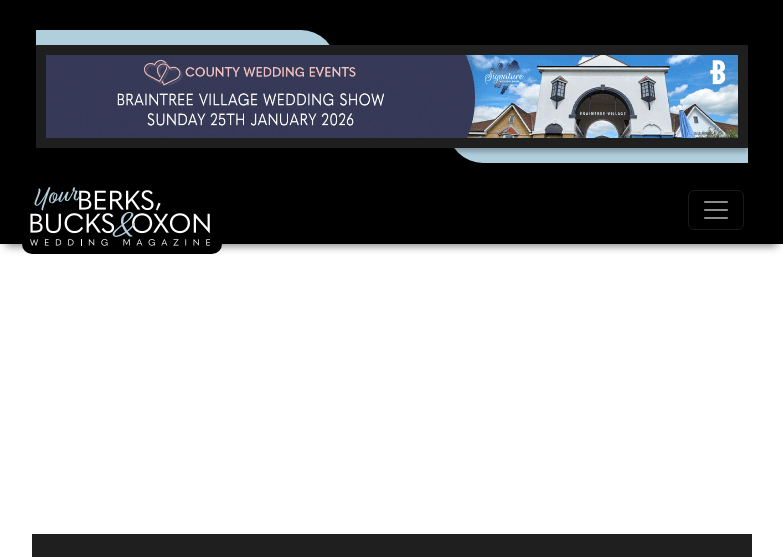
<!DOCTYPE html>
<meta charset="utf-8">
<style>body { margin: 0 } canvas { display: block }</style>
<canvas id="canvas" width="783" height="557"></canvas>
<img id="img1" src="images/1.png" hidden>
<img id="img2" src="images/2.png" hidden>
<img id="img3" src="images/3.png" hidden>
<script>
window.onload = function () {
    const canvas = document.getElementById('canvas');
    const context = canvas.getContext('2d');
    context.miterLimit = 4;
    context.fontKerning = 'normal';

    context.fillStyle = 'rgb(255, 255, 255)';
    context.fillRect(0, 0, 783, 557);
    context.fillStyle = 'rgb(0, 0, 0)';
    context.fillRect(0, 0, 783, 177);
    context.fillStyle = 'rgb(176, 207, 221)';
    context.beginPath();
    context.roundRect(36, 30, 300, 100, [0, 35, 0, 35]);
    context.fill();
    context.beginPath();
    context.roundRect(448, 63, 300, 100, [0, 35, 0, 35]);
    context.fill();
    context.fillStyle = 'rgba(0, 0, 0, 0.25)';
    context.filter = 'blur(2px)';
    context.beginPath();
    context.rect(36, 49, 712, 103);
    context.fill();
    context.filter = 'none';
    context.fillStyle = 'rgb(31, 31, 31)';
    context.fillRect(36, 45, 712, 103);
    context.drawImage(document.getElementById('img1'), 46, 55, 692, 83);
    context.fillStyle = 'rgba(0, 0, 0, 0.5)';
    context.filter = 'blur(4px)';
    context.beginPath();
    context.rect(6, 191, 771, 55);
    context.fill();
    context.filter = 'none';
    context.fillStyle = 'rgb(0, 0, 0)';
    context.fillRect(0, 177, 783, 67);
    context.beginPath();
    context.roundRect(22, 187, 200, 67, [0, 0, 10, 10]);
    context.fill();
    context.drawImage(document.getElementById('img2'), 30, 187, 180, 59);
    context.beginPath();
    context.roundRect(688.5, 190.5, 55, 39, 5.5);
    context.strokeStyle = 'rgb(26, 26, 26)';
    context.stroke();
    context.drawImage(document.getElementById('img3'), 704, 201, 24, 18);
    context.fillStyle = 'rgb(31, 31, 31)';
    context.fillRect(32, 534, 720, 23);
};
</script>
